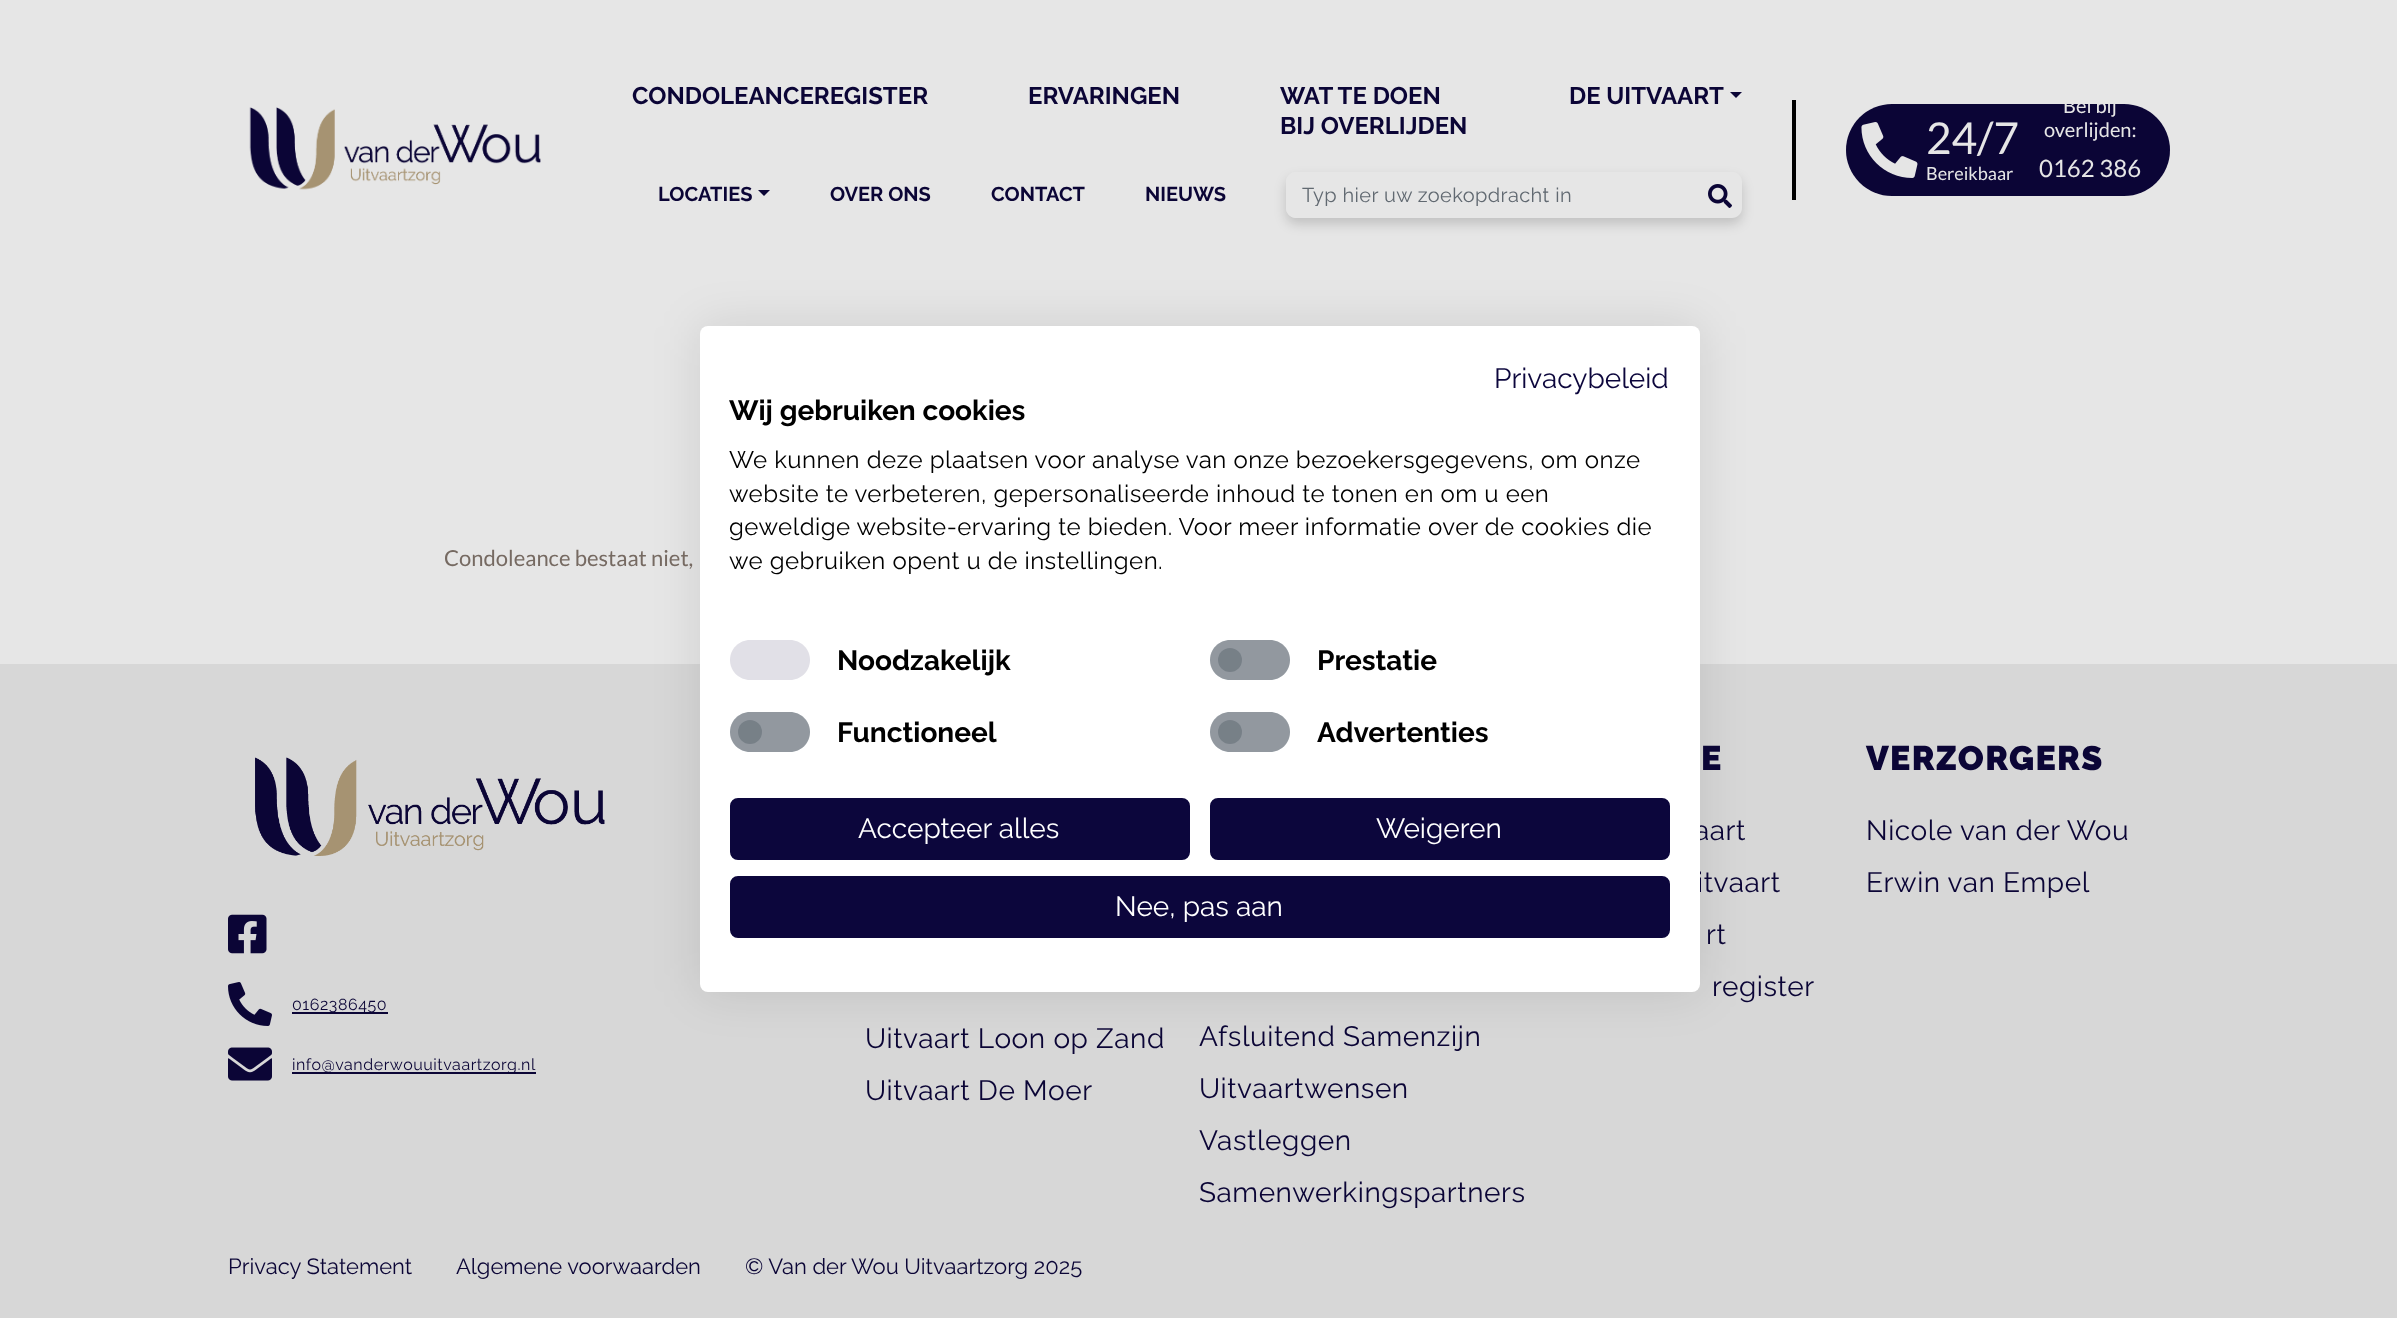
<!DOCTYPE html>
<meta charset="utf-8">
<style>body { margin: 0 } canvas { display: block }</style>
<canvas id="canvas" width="2397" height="1318"></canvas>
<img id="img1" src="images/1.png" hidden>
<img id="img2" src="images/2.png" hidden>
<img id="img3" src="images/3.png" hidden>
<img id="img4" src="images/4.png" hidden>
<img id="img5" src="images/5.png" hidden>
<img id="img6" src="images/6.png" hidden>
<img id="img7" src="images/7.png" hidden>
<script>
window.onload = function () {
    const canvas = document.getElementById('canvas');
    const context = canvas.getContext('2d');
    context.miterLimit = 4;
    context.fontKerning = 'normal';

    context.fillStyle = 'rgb(230, 230, 230)';
    context.fillRect(0, 0, 2397, 1318);
    context.drawImage(document.getElementById('img1'), 249, 107, 292, 83);
    context.fillStyle = 'rgb(11, 5, 54)';
    context.beginPath();
    context.moveTo(1730, 92);
    context.lineTo(1742, 92);
    context.lineTo(1736, 98);
    context.closePath();
    context.fill();
    context.beginPath();
    context.moveTo(758, 190);
    context.lineTo(770, 190);
    context.lineTo(764, 196);
    context.closePath();
    context.fill();
    context.save();
    context.beginPath();
    context.moveTo(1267, 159);
    context.lineTo(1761, 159);
    context.lineTo(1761, 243);
    context.lineTo(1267, 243);
    context.closePath();
    context.moveTo(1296, 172);
    context.lineTo(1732, 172);
    context.bezierCurveTo(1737.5, 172, 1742, 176.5, 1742, 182);
    context.lineTo(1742, 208);
    context.bezierCurveTo(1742, 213.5, 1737.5, 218, 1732, 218);
    context.lineTo(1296, 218);
    context.bezierCurveTo(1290.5, 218, 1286, 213.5, 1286, 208);
    context.lineTo(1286, 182);
    context.bezierCurveTo(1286, 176.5, 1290.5, 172, 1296, 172);
    context.closePath();
    context.clip('evenodd');
    context.fillStyle = 'rgba(0, 0, 0, 0.16)';
    context.filter = 'blur(6px)';
    context.beginPath();
    context.roundRect(1286, 178, 456, 46, 10);
    context.fill();
    context.filter = 'none';
    context.restore();
    context.fillStyle = 'rgb(230, 230, 230)';
    context.beginPath();
    context.roundRect(1286, 172, 412, 46, [10, 0, 0, 10]);
    context.fill();
    context.drawImage(document.getElementById('img2'), 1708, 184, 24, 24);
    context.fillStyle = 'rgb(0, 0, 0)';
    context.fillRect(1792, 100, 4, 100);
    context.fillStyle = 'rgb(11, 5, 54)';
    context.beginPath();
    context.roundRect(1846, 104, 324, 92, 46);
    context.fill();
    context.drawImage(document.getElementById('img3'), 1861, 122, 57, 56);
    context.fillStyle = 'rgb(215, 215, 215)';
    context.fillRect(0, 664, 2397, 654);
    context.fillStyle = 'rgba(0, 0, 0, 0.1)';
    context.filter = 'blur(24px)';
    context.beginPath();
    context.roundRect(700, 326, 1000, 666, 8);
    context.fill();
    context.filter = 'none';
    context.drawImage(document.getElementById('img4'), 255, 757, 350, 99);
    context.drawImage(document.getElementById('img5'), 228, 914, 39, 40);
    context.drawImage(document.getElementById('img6'), 228, 982, 44, 44);
    context.fillStyle = 'rgb(11, 5, 54)';
    context.fillRect(292, 1012, 96, 2);
    context.drawImage(document.getElementById('img7'), 228, 1047, 44, 34);
    context.fillRect(292, 1072, 244, 2);
    context.font = 'bold 24px Raleway';
    context.fillText('CONDOLEANCEREGISTER', 632, 104);
    context.fillText('ERVARINGEN', 1028, 104);
    context.fillText('WAT TE DOEN', 1280, 104);
    context.fillText('BIJ OVERLIJDEN', 1280, 134);
    context.fillText('DE UITVAART', 1569, 104);
    context.font = 'bold 20px Raleway';
    context.fillText('LOCATIES', 658, 201);
    context.fillText('OVER ONS', 830, 201);
    context.fillText('CONTACT', 991, 201);
    context.fillText('NIEUWS', 1145, 201);
    context.save();
    context.beginPath();
    context.rect(1302, 184, 380, 22);
    context.clip();
    context.letterSpacing = '0.4px';
    context.font = '20px Raleway';
    context.fillStyle = 'rgb(97, 105, 113)';
    context.fillText('Typ hier uw zoekopdracht in', 1302, 202);
    context.restore();
    context.font = '44px Lato';
    context.fillStyle = 'rgb(230, 230, 230)';
    context.fillText('24/7', 1926, 154);
    context.font = '18px Lato';
    context.fillText('Bereikbaar', 1926, 180);
    context.font = '20px Lato';
    context.fillText('Bel bij', 2063, 113);
    context.fillText('overlijden:', 2044, 137);
    context.font = '24px Lato';
    context.fillText('0162 386', 2039, 177);
    context.font = '22px Lato';
    context.fillStyle = 'rgb(118, 106, 98)';
    context.fillText('Condoleance bestaat niet,', 444, 566);
    context.letterSpacing = '0.55px';
    context.font = '16px Raleway';
    context.fillStyle = 'rgb(11, 5, 54)';
    context.fillText('0162386450', 292, 1010);
    context.fillText('info@vanderwouuitvaartzorg.nl', 292, 1070);
    context.letterSpacing = '1.25px';
    context.font = '900 34px Raleway';
    context.fillText('E', 1701, 770);
    context.letterSpacing = '0.55px';
    context.font = '28px Raleway';
    context.fillText('aart', 1694, 840);
    context.fillText('itvaart', 1697, 892);
    context.fillStyle = 'rgb(255, 255, 255)';
    context.beginPath();
    context.roundRect(700, 326, 1000, 666, 8);
    context.fill();
    context.fillStyle = 'rgb(12, 6, 60)';
    context.beginPath();
    context.roundRect(731, 877, 938, 60, 7);
    context.fill();
    context.strokeStyle = 'rgb(12, 6, 60)';
    context.lineWidth = 2;
    context.stroke();
    context.letterSpacing = '0px';
    context.fillStyle = 'rgb(255, 255, 255)';
    context.fillText('Nee, pas aan', 1115, 916);
    context.fillStyle = 'rgb(12, 6, 60)';
    context.beginPath();
    context.roundRect(1211, 799, 458, 60, 7);
    context.fill();
    context.stroke();
    context.fillStyle = 'rgb(255, 255, 255)';
    context.fillText('Weigeren', 1376, 838);
    context.fillStyle = 'rgb(12, 6, 60)';
    context.beginPath();
    context.roundRect(731, 799, 458, 60, 7);
    context.fill();
    context.stroke();
    context.fillStyle = 'rgb(255, 255, 255)';
    context.fillText('Accepteer alles', 858, 838);
    context.fillStyle = 'rgb(233, 236, 239)';
    context.beginPath();
    context.roundRect(1210, 712, 80, 40, 20);
    context.fill();
    context.fillStyle = 'rgb(146, 153, 159)';
    context.beginPath();
    context.arc(1230, 732, 12, 0, 2 * Math.PI);
    context.fill();
    context.fillStyle = 'rgba(108, 117, 125, 0.7)';
    context.beginPath();
    context.moveTo(1230, 712);
    context.lineTo(1270, 712);
    context.bezierCurveTo(1281, 712, 1290, 721, 1290, 732);
    context.bezierCurveTo(1290, 743, 1281, 752, 1270, 752);
    context.lineTo(1230, 752);
    context.bezierCurveTo(1219, 752, 1210, 743, 1210, 732);
    context.bezierCurveTo(1210, 721, 1219, 712, 1230, 712);
    context.closePath();
    context.fill();
    context.font = 'bold 28px Raleway';
    context.fillStyle = 'rgb(0, 0, 0)';
    context.fillText('Advertenties', 1317, 742);
    context.fillStyle = 'rgb(233, 236, 239)';
    context.beginPath();
    context.roundRect(730, 712, 80, 40, 20);
    context.fill();
    context.fillStyle = 'rgb(146, 153, 159)';
    context.beginPath();
    context.arc(750, 732, 12, 0, 2 * Math.PI);
    context.fill();
    context.fillStyle = 'rgba(108, 117, 125, 0.7)';
    context.beginPath();
    context.moveTo(750, 712);
    context.lineTo(790, 712);
    context.bezierCurveTo(801, 712, 810, 721, 810, 732);
    context.bezierCurveTo(810, 743, 801, 752, 790, 752);
    context.lineTo(750, 752);
    context.bezierCurveTo(739, 752, 730, 743, 730, 732);
    context.bezierCurveTo(730, 721, 739, 712, 750, 712);
    context.closePath();
    context.fill();
    context.fillStyle = 'rgb(0, 0, 0)';
    context.fillText('Functioneel', 837, 742);
    context.fillStyle = 'rgb(233, 236, 239)';
    context.beginPath();
    context.roundRect(1210, 640, 80, 40, 20);
    context.fill();
    context.fillStyle = 'rgb(146, 153, 159)';
    context.beginPath();
    context.arc(1230, 660, 12, 0, 2 * Math.PI);
    context.fill();
    context.fillStyle = 'rgba(108, 117, 125, 0.7)';
    context.beginPath();
    context.moveTo(1230, 640);
    context.lineTo(1270, 640);
    context.bezierCurveTo(1281, 640, 1290, 649, 1290, 660);
    context.bezierCurveTo(1290, 671, 1281, 680, 1270, 680);
    context.lineTo(1230, 680);
    context.bezierCurveTo(1219, 680, 1210, 671, 1210, 660);
    context.bezierCurveTo(1210, 649, 1219, 640, 1230, 640);
    context.closePath();
    context.fill();
    context.fillStyle = 'rgb(0, 0, 0)';
    context.fillText('Prestatie', 1317, 670);
    context.fillStyle = 'rgb(225, 224, 231)';
    context.beginPath();
    context.moveTo(750, 640);
    context.lineTo(790, 640);
    context.bezierCurveTo(801, 640, 810, 649, 810, 660);
    context.bezierCurveTo(810, 671, 801, 680, 790, 680);
    context.lineTo(750, 680);
    context.bezierCurveTo(739, 680, 730, 671, 730, 660);
    context.bezierCurveTo(730, 649, 739, 640, 750, 640);
    context.closePath();
    context.fill();
    context.fillStyle = 'rgb(0, 0, 0)';
    context.fillText('Noodzakelijk', 837, 670);
    context.letterSpacing = '0.48px';
    context.font = '24px Raleway';
    context.fillText('we gebruiken opent u de instellingen.', 729, 569);
    context.fillText('geweldige website-ervaring te bieden. Voor meer informatie over de cookies die', 729, 535);
    context.fillText('website te verbeteren, gepersonaliseerde inhoud te tonen en om u een', 729, 502);
    context.fillText('We kunnen deze plaatsen voor analyse van onze bezoekersgegevens, om onze', 729, 468);
    context.letterSpacing = '0px';
    context.font = 'bold 28px Raleway';
    context.fillText('Wij gebruiken cookies', 729, 420);
    context.font = '28px Raleway';
    context.fillStyle = 'rgb(12, 6, 60)';
    context.fillText('Privacybeleid', 1494, 388);
    context.letterSpacing = '0.55px';
    context.fillStyle = 'rgb(11, 5, 54)';
    context.fillText('rt', 1706, 944);
    context.fillText('register', 1712, 996);
    context.letterSpacing = '1.25px';
    context.font = '900 34px Raleway';
    context.fillText('VERZORGERS', 1866, 770);
    context.letterSpacing = '0.55px';
    context.font = '28px Raleway';
    context.fillText('Nicole van der Wou', 1866, 840);
    context.fillText('Erwin van Empel', 1866, 892);
    context.fillText('Uitvaart Loon op Zand', 865, 1048);
    context.fillText('Uitvaart De Moer', 865, 1100);
    context.fillText('Afsluitend Samenzijn', 1199, 1046);
    context.fillText('Uitvaartwensen', 1199, 1098);
    context.fillText('Vastleggen', 1199, 1150);
    context.fillText('Samenwerkingspartners', 1199, 1202);
    context.letterSpacing = '0px';
    context.font = '22px Raleway';
    context.fillText('Privacy Statement', 228, 1274);
    context.fillText('Algemene voorwaarden', 456, 1274);
    context.fillText('© Van der Wou Uitvaartzorg 2025', 745, 1274);
};
</script>
